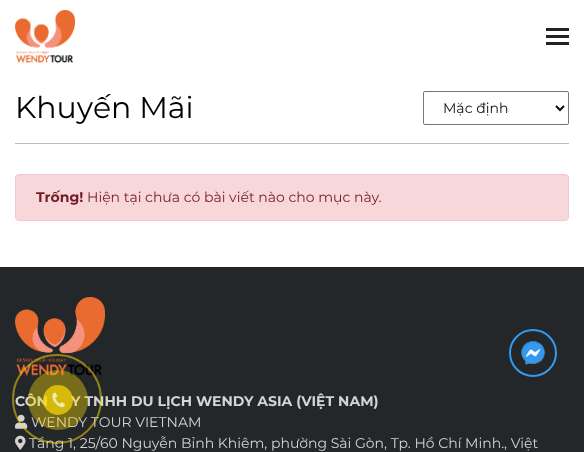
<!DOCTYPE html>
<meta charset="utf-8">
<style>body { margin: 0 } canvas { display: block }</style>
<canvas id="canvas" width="584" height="452"></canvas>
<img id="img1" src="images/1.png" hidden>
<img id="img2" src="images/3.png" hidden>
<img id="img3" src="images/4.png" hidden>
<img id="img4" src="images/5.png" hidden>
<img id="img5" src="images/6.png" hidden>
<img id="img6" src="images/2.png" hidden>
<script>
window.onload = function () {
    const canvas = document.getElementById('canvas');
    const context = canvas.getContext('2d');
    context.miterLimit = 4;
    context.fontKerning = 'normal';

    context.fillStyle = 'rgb(255, 255, 255)';
    context.fillRect(0, 0, 584, 452);
    context.drawImage(document.getElementById('img1'), 15, 10, 60, 53);
    context.fillStyle = 'rgb(34, 34, 34)';
    context.fillRect(546, 28, 23, 3);
    context.fillRect(546, 35, 23, 3);
    context.fillRect(546, 42, 23, 3);
    context.fillStyle = 'rgb(189, 189, 189)';
    context.fillRect(15, 143, 554, 1);
    context.beginPath();
    context.roundRect(423.5, 91.5, 145, 33, 1.5);
    context.strokeStyle = 'rgb(118, 118, 118)';
    context.stroke();
    context.beginPath();
    context.moveTo(556, 106);
    context.lineTo(560, 110);
    context.lineTo(564, 106);
    context.strokeStyle = 'rgb(16, 16, 16)';
    context.lineWidth = 2;
    context.stroke();
    context.fillStyle = 'rgb(248, 215, 218)';
    context.beginPath();
    context.roundRect(15.5, 174.5, 553, 46, 3.5);
    context.fill();
    context.strokeStyle = 'rgb(245, 198, 203)';
    context.lineWidth = 1;
    context.stroke();
    context.fillStyle = 'rgb(36, 39, 42)';
    context.fillRect(0, 267, 584, 185);
    context.beginPath();
    context.arc(533, 353, 23, 0, 2 * Math.PI);
    context.strokeStyle = 'rgb(51, 155, 239)';
    context.lineWidth = 2;
    context.stroke();
    context.drawImage(document.getElementById('img2'), 521, 341, 24, 24);
    context.drawImage(document.getElementById('img3'), 15, 297, 90, 79);
    context.drawImage(document.getElementById('img4'), 15, 414, 13, 15);
    context.drawImage(document.getElementById('img5'), 15, 435, 11, 15);
    context.font = '30px Montserrat';
    context.fillStyle = 'rgb(0, 0, 0)';
    context.fillText('Khuyến Mãi', 15, 118);
    context.font = '14px Montserrat';
    context.fillStyle = 'rgb(16, 16, 16)';
    context.fillText('Mặc định', 443, 113);
    context.font = 'bold 14px Montserrat';
    context.fillStyle = 'rgb(114, 28, 36)';
    context.fillText('Trống!', 36, 202);
    context.font = '14px Montserrat';
    context.fillText('Hiện tại chưa có bài viết nào cho mục này.', 87, 202);
    context.font = 'bold 14px Montserrat';
    context.fillStyle = 'rgb(211, 212, 212)';
    context.fillText('CÔN', 15, 406);
    context.fillText('Y TNHH DU LỊCH WENDY ASIA (VIỆT NAM)', 71, 406);
    context.font = '14px Montserrat';
    context.fillText('WENDY TOUR VIETNAM', 31, 427);
    context.fillText('Tầng 1, 25/60 Nguyễn Bỉnh Khiêm, phường Sài Gòn, Tp. Hồ Chí Minh., Việt', 29, 448);
    context.beginPath();
    context.arc(57, 399, 44, 0, 2 * Math.PI);
    context.strokeStyle = 'rgba(255, 219, 4, 0.5)';
    context.stroke();
    context.fillStyle = 'rgba(255, 219, 4, 0.38)';
    context.beginPath();
    context.arc(58, 400, 30, 0, 2 * Math.PI);
    context.fill();
    context.fillStyle = 'rgba(255, 219, 4, 0.7)';
    context.beginPath();
    context.arc(58, 400, 15, 0, 2 * Math.PI);
    context.fill();
    context.drawImage(document.getElementById('img6'), 52, 392, 13, 16);
};
</script>
